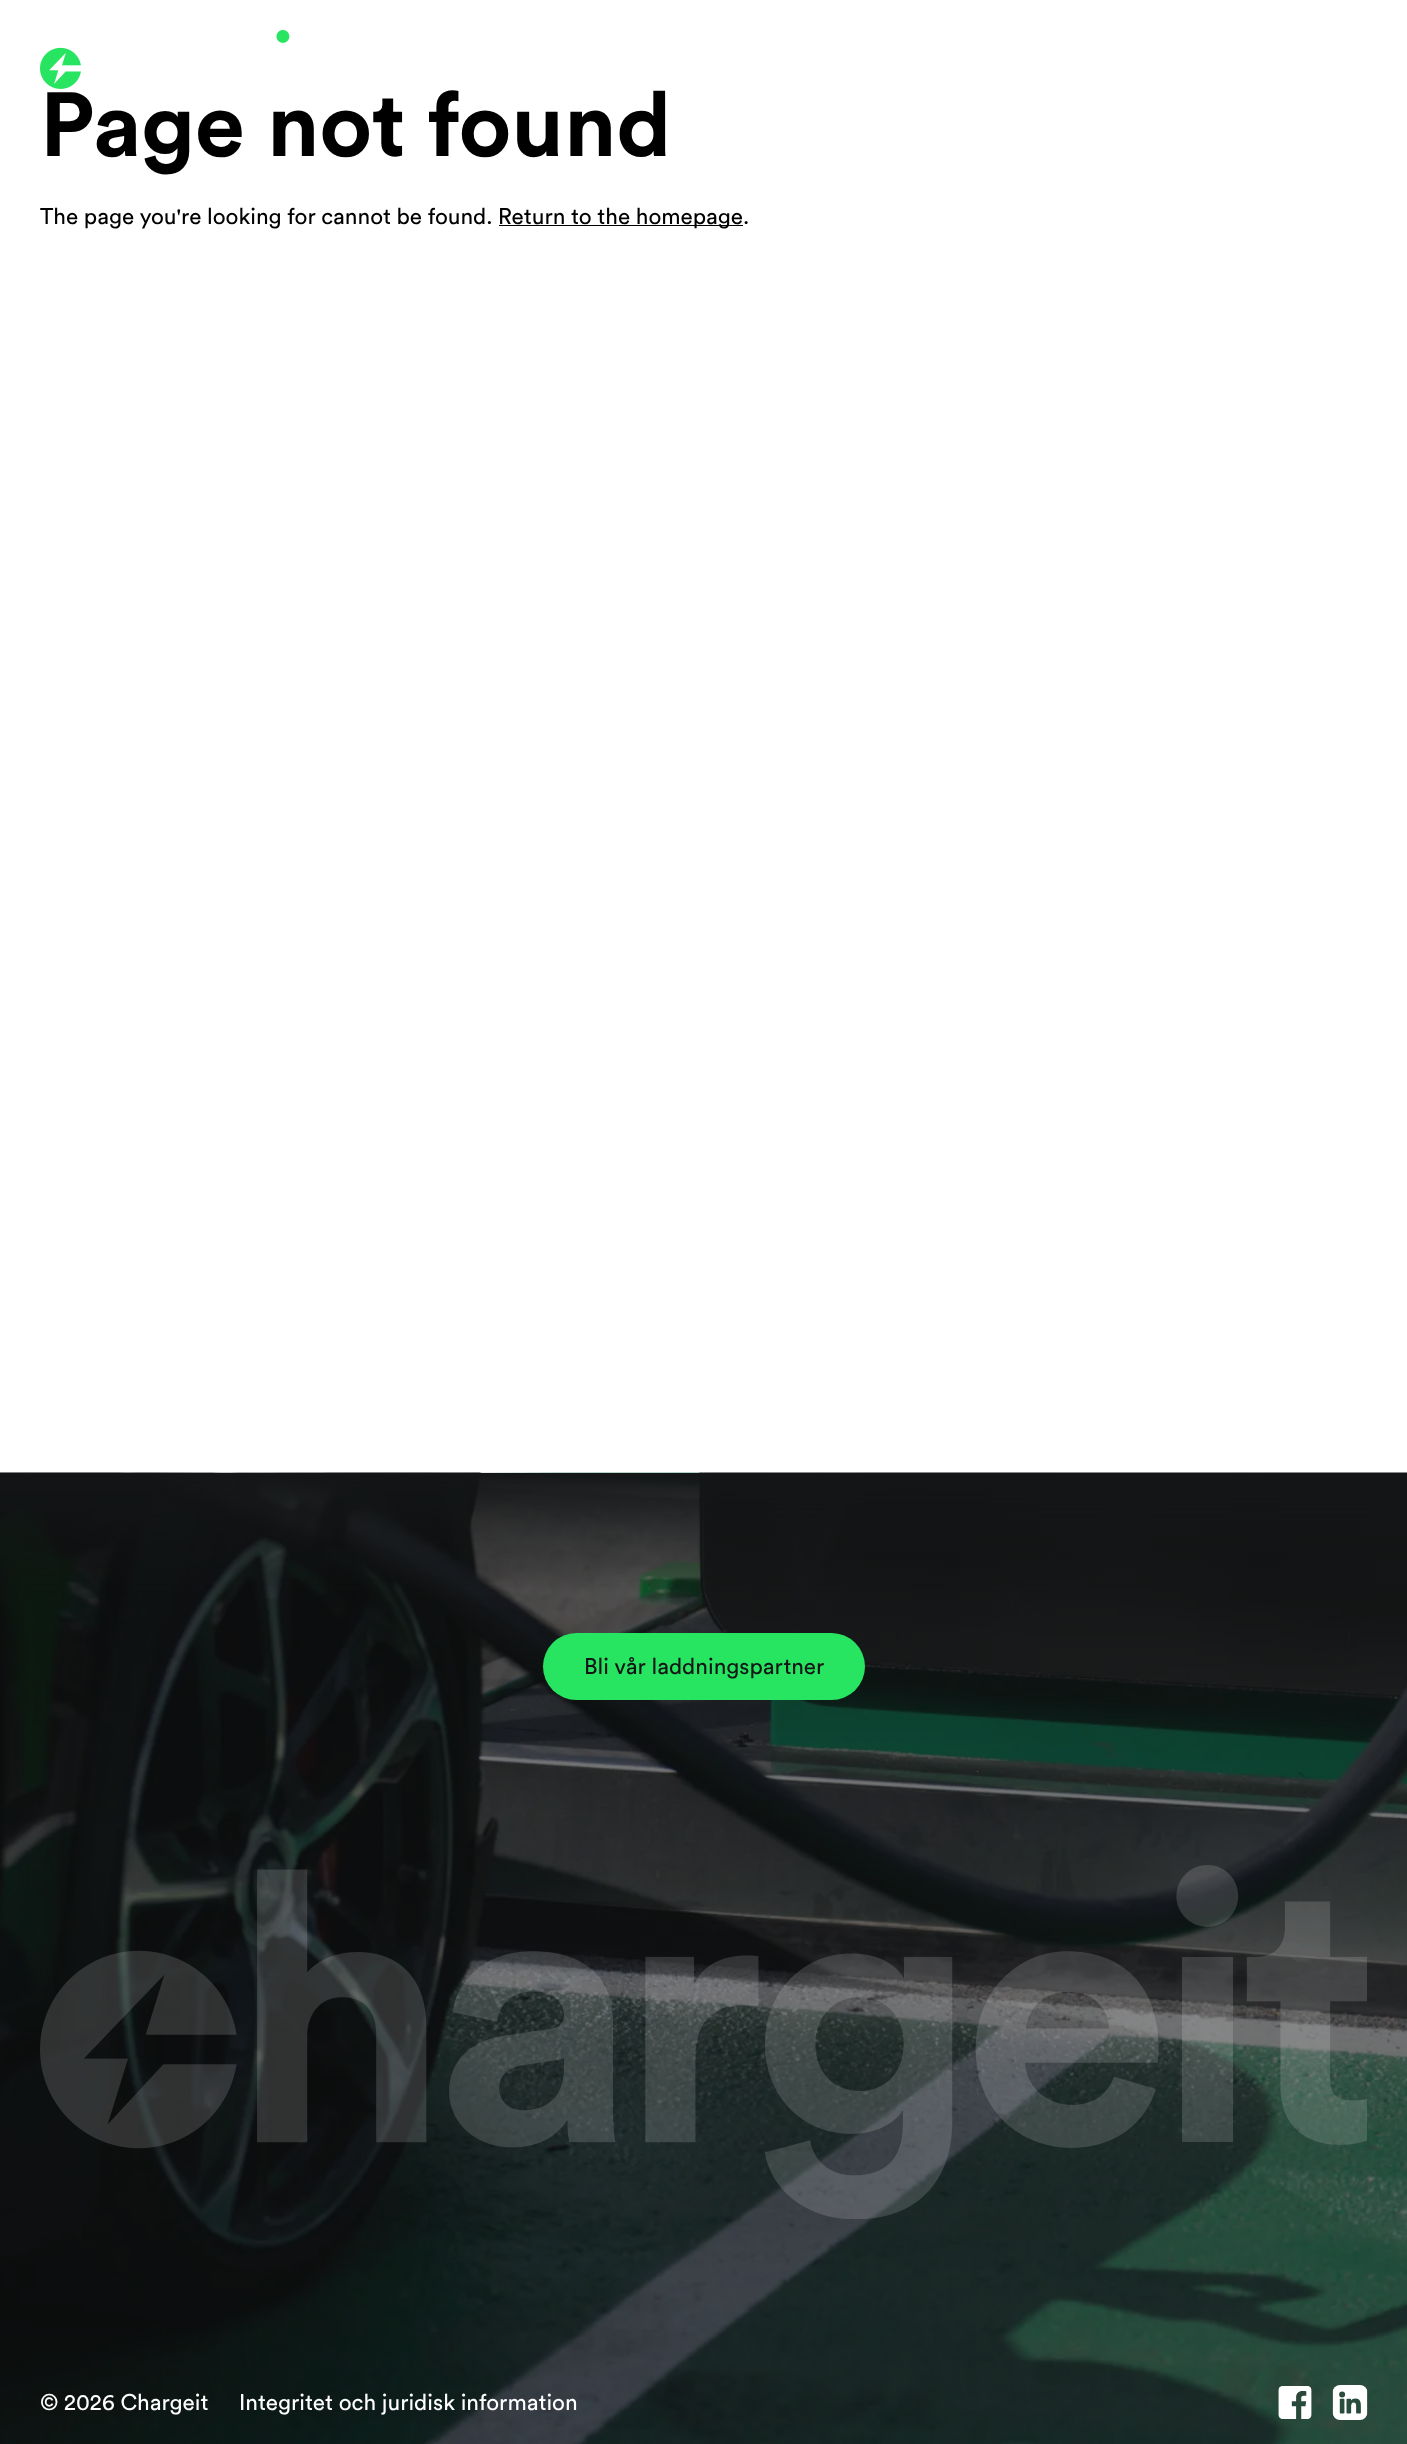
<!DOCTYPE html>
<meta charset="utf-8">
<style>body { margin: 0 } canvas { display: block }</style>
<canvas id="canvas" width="1407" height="2444"></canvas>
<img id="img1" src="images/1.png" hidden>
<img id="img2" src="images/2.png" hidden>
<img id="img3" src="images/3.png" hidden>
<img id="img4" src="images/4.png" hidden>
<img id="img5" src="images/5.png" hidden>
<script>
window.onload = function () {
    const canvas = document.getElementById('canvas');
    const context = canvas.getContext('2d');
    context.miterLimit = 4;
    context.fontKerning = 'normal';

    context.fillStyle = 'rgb(255, 255, 255)';
    context.fillRect(0, 0, 1407, 2444);
    context.drawImage(document.getElementById('img1'), 40, 30, 250, 59);
    context.fillStyle = 'rgb(0, 0, 0)';
    context.fillRect(499, 225, 244, 1);
    context.drawImage(document.getElementById('img2'), 0, 1472, 1407, 972);
    context.fillStyle = 'rgb(39, 229, 97)';
    context.beginPath();
    context.roundRect(543, 1633, 322, 67, 33.5);
    context.fill();
    context.drawImage(document.getElementById('img3'), 40, 1865, 1327, 354);
    context.drawImage(document.getElementById('img4'), 1278, 2386, 34, 33);
    context.drawImage(document.getElementById('img5'), 1332, 2385, 36, 35);
    context.font = 'bold 90px Circular';
    context.fillStyle = 'rgb(0, 0, 0)';
    context.fillText('Page not found', 40, 156);
    context.font = '22.5px Circular';
    context.fillText('The page you\'re looking for cannot be found.', 40, 224);
    context.fillText('Return to the homepage', 498, 224);
    context.fillText('.', 743, 224);
    context.fillStyle = 'rgb(19, 21, 22)';
    context.fillText('Bli vår laddningspartner', 584, 1674);
    context.fillStyle = 'rgb(255, 255, 255)';
    context.fillText('© 2026 Chargeit', 40, 2410);
    context.fillText('Integritet och juridisk information', 239, 2410);
};
</script>
